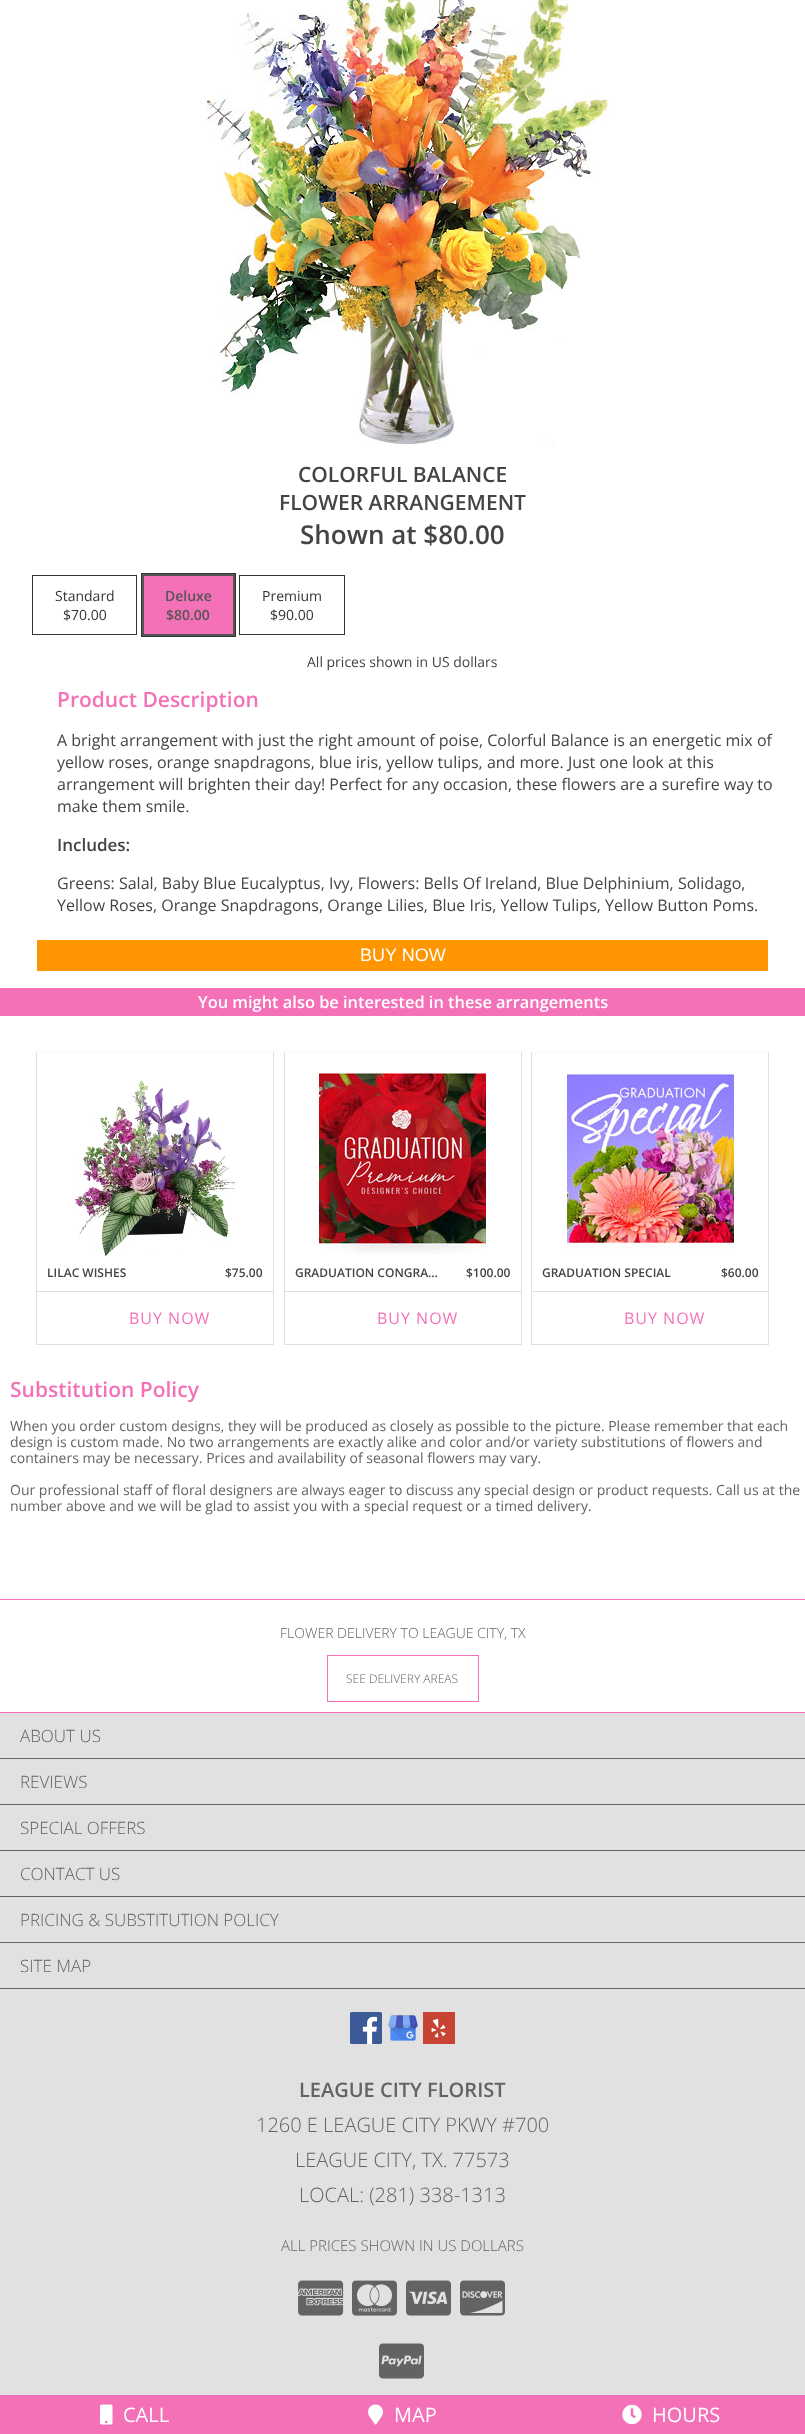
<!DOCTYPE html>
<meta charset="utf-8">
<style>body { margin: 0 } canvas { display: block }</style>
<canvas id="canvas" width="805" height="2434"></canvas>
<img id="img1" src="images/1.png" hidden>
<img id="img2" src="images/2.png" hidden>
<img id="img3" src="images/3.png" hidden>
<img id="img4" src="images/4.png" hidden>
<img id="img5" src="images/5.png" hidden>
<img id="img6" src="images/6.png" hidden>
<img id="img7" src="images/7.png" hidden>
<img id="img8" src="images/8.png" hidden>
<img id="img9" src="images/9.png" hidden>
<img id="img10" src="images/10.png" hidden>
<img id="img11" src="images/11.png" hidden>
<img id="img12" src="images/12.png" hidden>
<img id="img13" src="images/13.png" hidden>
<img id="img14" src="images/14.png" hidden>
<img id="img15" src="images/15.png" hidden>
<script>
window.onload = function () {
    const canvas = document.getElementById('canvas');
    const context = canvas.getContext('2d');
    context.miterLimit = 4;
    context.fontKerning = 'normal';

    context.fillStyle = 'rgb(255, 255, 255)';
    context.fillRect(0, 0, 805, 2434);
    context.drawImage(document.getElementById('img1'), 206, 0, 408, 447);
    context.strokeStyle = 'rgb(51, 51, 51)';
    context.strokeRect(32.5, 575.5, 104, 59);
    context.strokeRect(141.5, 573.5, 94, 63);
    context.fillStyle = 'rgb(244, 113, 184)';
    context.beginPath();
    context.rect(143, 575, 91, 60);
    context.fill();
    context.strokeStyle = 'rgb(85, 85, 85)';
    context.lineWidth = 2;
    context.stroke();
    context.strokeStyle = 'rgb(51, 51, 51)';
    context.lineWidth = 1;
    context.strokeRect(239.5, 575.5, 105, 59);
    context.fillStyle = 'rgb(255, 149, 1)';
    context.fillRect(37, 940, 731, 31);
    context.fillStyle = 'rgb(244, 113, 184)';
    context.fillRect(0, 988, 805, 28);
    context.fillStyle = 'rgb(249, 249, 249)';
    context.fillRect(36, 1052, 238, 1);
    context.fillStyle = 'rgb(226, 222, 221)';
    context.fillRect(273, 1052, 1, 293);
    context.fillRect(36, 1344, 238, 1);
    context.fillRect(36, 1052, 1, 293);
    context.drawImage(document.getElementById('img2'), 73, 1080, 163, 176);
    context.fillRect(37, 1291, 236, 1);
    context.fillStyle = 'rgb(249, 249, 249)';
    context.fillRect(284, 1052, 238, 1);
    context.fillStyle = 'rgb(226, 222, 221)';
    context.fillRect(521, 1052, 1, 293);
    context.fillRect(284, 1344, 238, 1);
    context.fillRect(284, 1052, 1, 293);
    context.drawImage(document.getElementById('img3'), 319, 1072, 167, 182);
    context.fillRect(285, 1291, 236, 1);
    context.fillStyle = 'rgb(249, 249, 249)';
    context.fillRect(531, 1052, 238, 1);
    context.fillStyle = 'rgb(226, 222, 221)';
    context.fillRect(768, 1052, 1, 293);
    context.fillRect(531, 1344, 238, 1);
    context.fillRect(531, 1052, 1, 293);
    context.drawImage(document.getElementById('img4'), 567, 1074, 167, 175);
    context.fillRect(532, 1291, 236, 1);
    context.fillStyle = 'rgb(244, 113, 184)';
    context.fillRect(0, 1599, 805, 1);
    context.fillRect(0, 1712, 805, 1);
    context.strokeStyle = 'rgb(244, 113, 184)';
    context.strokeRect(327.5, 1655.5, 151, 46);
    context.fillStyle = 'rgb(225, 225, 225)';
    context.fillRect(0, 1713, 805, 682);
    context.fillStyle = 'rgb(99, 99, 99)';
    context.fillRect(0, 1758, 805, 1);
    context.fillRect(0, 1804, 805, 1);
    context.fillRect(0, 1850, 805, 1);
    context.fillRect(0, 1896, 805, 1);
    context.fillRect(0, 1942, 805, 1);
    context.fillRect(0, 1988, 805, 1);
    context.drawImage(document.getElementById('img5'), 350, 2012, 32, 32);
    context.drawImage(document.getElementById('img6'), 388, 2015, 30, 26);
    context.drawImage(document.getElementById('img7'), 423, 2012, 32, 32);
    context.drawImage(document.getElementById('img8'), 298, 2280, 46, 36);
    context.drawImage(document.getElementById('img9'), 352, 2280, 45, 36);
    context.drawImage(document.getElementById('img10'), 406, 2280, 45, 36);
    context.drawImage(document.getElementById('img11'), 460, 2280, 45, 36);
    context.drawImage(document.getElementById('img12'), 379, 2343, 45, 36);
    context.fillStyle = 'rgb(244, 113, 184)';
    context.fillRect(0, 2395, 805, 39);
    context.drawImage(document.getElementById('img13'), 100, 2404, 13, 21);
    context.drawImage(document.getElementById('img14'), 368, 2404, 15, 21);
    context.drawImage(document.getElementById('img15'), 622, 2404, 20, 21);
    context.font = '600 21px Open Sans';
    context.fillStyle = 'rgb(68, 68, 68)';
    context.fillText('COLORFUL BALANCE', 298, 482);
    context.fillText('FLOWER ARRANGEMENT', 279, 510);
    context.font = '600 26px Open Sans';
    context.fillText('Shown at $80.00', 300, 544);
    context.font = '14px Open Sans';
    context.fillStyle = 'rgb(51, 51, 51)';
    context.fillText('Standard', 55, 601);
    context.fillText('$70.00', 63, 620);
    context.font = '600 14px Open Sans';
    context.fillStyle = 'rgb(85, 85, 85)';
    context.fillText('Deluxe', 165, 601);
    context.fillText('$80.00', 166, 620);
    context.font = '14px Open Sans';
    context.fillStyle = 'rgb(51, 51, 51)';
    context.fillText('Premium', 262, 601);
    context.fillText('$90.00', 270, 620);
    context.fillStyle = 'rgb(68, 68, 68)';
    context.fillText('All prices shown in US dollars', 307, 667);
    context.font = '600 21px Open Sans';
    context.fillStyle = 'rgb(244, 113, 184)';
    context.fillText('Product Description', 57, 707);
    context.font = '16px Open Sans';
    context.fillStyle = 'rgb(68, 68, 68)';
    context.fillText('A bright arrangement with just the right amount of poise, Colorful Balance is an energetic mix of', 57, 746);
    context.fillText('yellow roses, orange snapdragons, blue iris, yellow tulips, and more. Just one look at this', 57, 768);
    context.fillText('arrangement will brighten their day! Perfect for any occasion, these flowers are a surefire way to', 57, 790);
    context.fillText('make them smile.', 57, 812);
    context.font = '600 17px Open Sans';
    context.fillText('Includes:', 57, 851);
    context.font = '16px Open Sans';
    context.fillText('Greens: Salal, Baby Blue Eucalyptus, Ivy, Flowers: Bells Of Ireland, Blue Delphinium, Solidago,', 57, 889);
    context.fillText('Yellow Roses, Orange Snapdragons, Orange Lilies, Blue Iris, Yellow Tulips, Yellow Button Poms.', 57, 911);
    context.font = '18px Liberation Sans';
    context.fillStyle = 'rgb(255, 255, 255)';
    context.fillText('BUY NOW', 360, 961);
    context.font = '600 16.4px Open Sans';
    context.fillText('You might also be interested in these arrangements', 198, 1008);
    context.font = '600 12px Open Sans';
    context.fillStyle = 'rgb(68, 68, 68)';
    context.fillText('LILAC WISHES', 47, 1277);
    context.fillText('$75.00', 225, 1277);
    context.letterSpacing = '1px';
    context.font = '16px Open Sans';
    context.fillStyle = 'rgb(244, 113, 184)';
    context.fillText('BUY NOW', 129, 1324);
    context.letterSpacing = '0px';
    context.font = '600 12px Open Sans';
    context.fillStyle = 'rgb(68, 68, 68)';
    context.fillText('GRADUATION CONGRA…', 295, 1277);
    context.fillText('$100.00', 466, 1277);
    context.letterSpacing = '1px';
    context.font = '16px Open Sans';
    context.fillStyle = 'rgb(244, 113, 184)';
    context.fillText('BUY NOW', 377, 1324);
    context.letterSpacing = '0px';
    context.font = '600 12px Open Sans';
    context.fillStyle = 'rgb(68, 68, 68)';
    context.fillText('GRADUATION SPECIAL', 542, 1277);
    context.fillText('$60.00', 721, 1277);
    context.letterSpacing = '1px';
    context.font = '16px Open Sans';
    context.fillStyle = 'rgb(244, 113, 184)';
    context.fillText('BUY NOW', 624, 1324);
    context.letterSpacing = '0px';
    context.font = '600 21px Open Sans';
    context.fillText('Substitution Policy', 10, 1397);
    context.font = '14px Open Sans';
    context.fillStyle = 'rgb(99, 99, 99)';
    context.fillText('When you order custom designs, they will be produced as closely as possible to the picture. Please remember that each', 10, 1431);
    context.fillText('design is custom made. No two arrangements are exactly alike and color and/or variety substitutions of flowers and', 10, 1447);
    context.fillText('containers may be necessary. Prices and availability of seasonal flowers may vary.', 10, 1463);
    context.fillText('Our professional staff of floral designers are always eager to discuss any special design or product requests. Call us at the', 10, 1495);
    context.fillText('number above and we will be glad to assist you with a special request or a timed delivery.', 10, 1511);
    context.font = '300 14px Open Sans';
    context.fillText('FLOWER DELIVERY TO LEAGUE CITY, TX', 280, 1638);
    context.font = '300 12px Open Sans';
    context.fillText('SEE DELIVERY AREAS', 346, 1683);
    context.font = '300 17px Open Sans';
    context.fillText('ABOUT US', 20, 1742);
    context.fillText('REVIEWS', 20, 1788);
    context.fillText('SPECIAL OFFERS', 20, 1834);
    context.fillText('CONTACT US', 20, 1880);
    context.fillText('PRICING & SUBSTITUTION POLICY', 20, 1926);
    context.fillText('SITE MAP', 20, 1972);
    context.font = '600 20px Open Sans';
    context.fillText('LEAGUE CITY FLORIST', 299, 2097);
    context.font = '300 20px Open Sans';
    context.fillText('1260 E LEAGUE CITY PKWY #700', 256, 2132);
    context.fillText('LEAGUE CITY, TX. 77573', 295, 2167);
    context.fillText('LOCAL: (281) 338-1313', 299, 2202);
    context.font = '300 15px Open Sans';
    context.fillText('ALL PRICES SHOWN IN US DOLLARS', 281, 2251);
    context.font = '20px Open Sans';
    context.fillStyle = 'rgb(255, 255, 255)';
    context.fillText('CALL', 123, 2422);
    context.fillText('MAP', 394, 2422);
    context.fillText('HOURS', 652, 2422);
};
</script>
